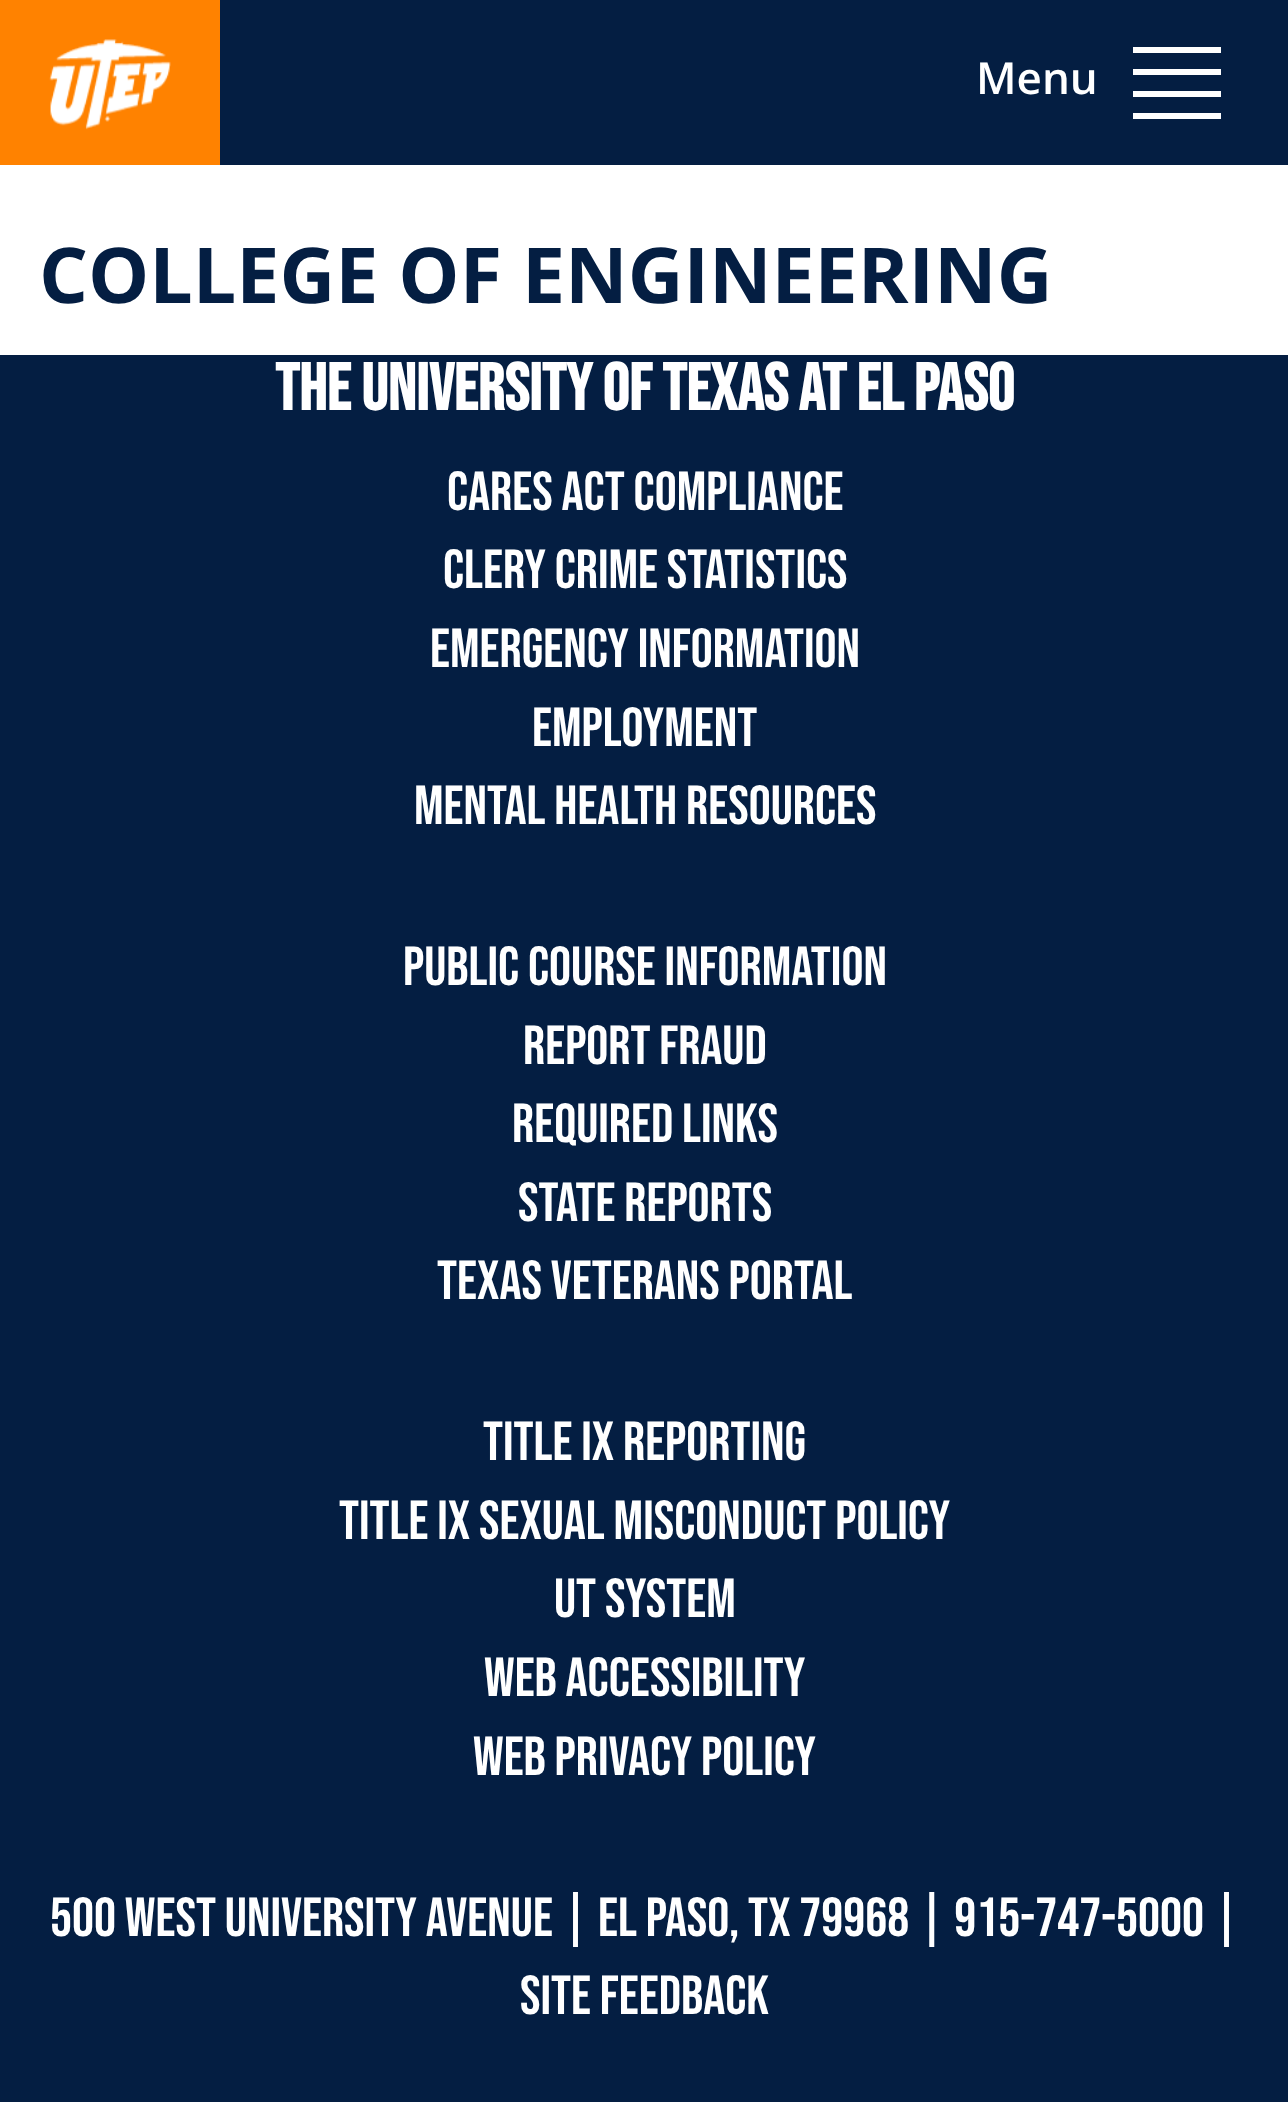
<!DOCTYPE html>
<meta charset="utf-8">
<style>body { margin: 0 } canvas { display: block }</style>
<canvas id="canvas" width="1288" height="2102"></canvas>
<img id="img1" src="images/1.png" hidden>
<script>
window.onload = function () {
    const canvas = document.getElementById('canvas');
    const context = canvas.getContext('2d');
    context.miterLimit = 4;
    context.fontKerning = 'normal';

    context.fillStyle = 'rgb(4, 30, 66)';
    context.fillRect(0, 0, 1288, 2102);
    context.fillStyle = 'rgb(255, 130, 0)';
    context.fillRect(0, 0, 220, 165);
    context.drawImage(document.getElementById('img1'), 49, 39, 122, 91);
    context.fillStyle = 'rgb(255, 255, 255)';
    context.fillRect(1133, 47, 88, 6);
    context.fillRect(1133, 69, 88, 6);
    context.fillRect(1133, 91, 88, 6);
    context.fillRect(1133, 113, 88, 6);
    context.fillRect(0, 165, 1288, 190);
    context.font = '600 44px Open Sans';
    context.fillText('Menu', 976, 94);
    context.font = 'bold 77px Open Sans';
    context.fillStyle = 'rgb(4, 30, 66)';
    context.fillText('COLLEGE OF ENGINEERING', 39, 303);
    context.font = 'bold 66px Bebas Neue';
    context.fillStyle = 'rgb(255, 255, 255)';
    context.fillText('THE UNIVERSITY OF TEXAS AT EL PASO', 275, 410);
    context.font = '55px Bebas Neue';
    context.fillText('CARES ACT COMPLIANCE', 447, 510);
    context.fillText('CLERY CRIME STATISTICS', 443, 588);
    context.fillText('EMERGENCY INFORMATION', 430, 667);
    context.fillText('EMPLOYMENT', 532, 746);
    context.fillText('MENTAL HEALTH RESOURCES', 414, 824);
    context.fillText('PUBLIC COURSE INFORMATION', 403, 985);
    context.fillText('REPORT FRAUD', 523, 1064);
    context.fillText('REQUIRED LINKS', 512, 1142);
    context.fillText('STATE REPORTS', 518, 1221);
    context.fillText('TEXAS VETERANS PORTAL', 437, 1299);
    context.fillText('TITLE IX REPORTING', 483, 1460);
    context.fillText('TITLE IX SEXUAL MISCONDUCT POLICY', 339, 1539);
    context.fillText('UT SYSTEM', 554, 1617);
    context.fillText('WEB ACCESSIBILITY', 484, 1696);
    context.fillText('WEB PRIVACY POLICY', 473, 1775);
    context.fillText('500 West University Avenue | El Paso, TX 79968 | 915-747-5000 |', 50, 1936);
    context.fillText('SITE FEEDBACK', 520, 2014);
};
</script>
